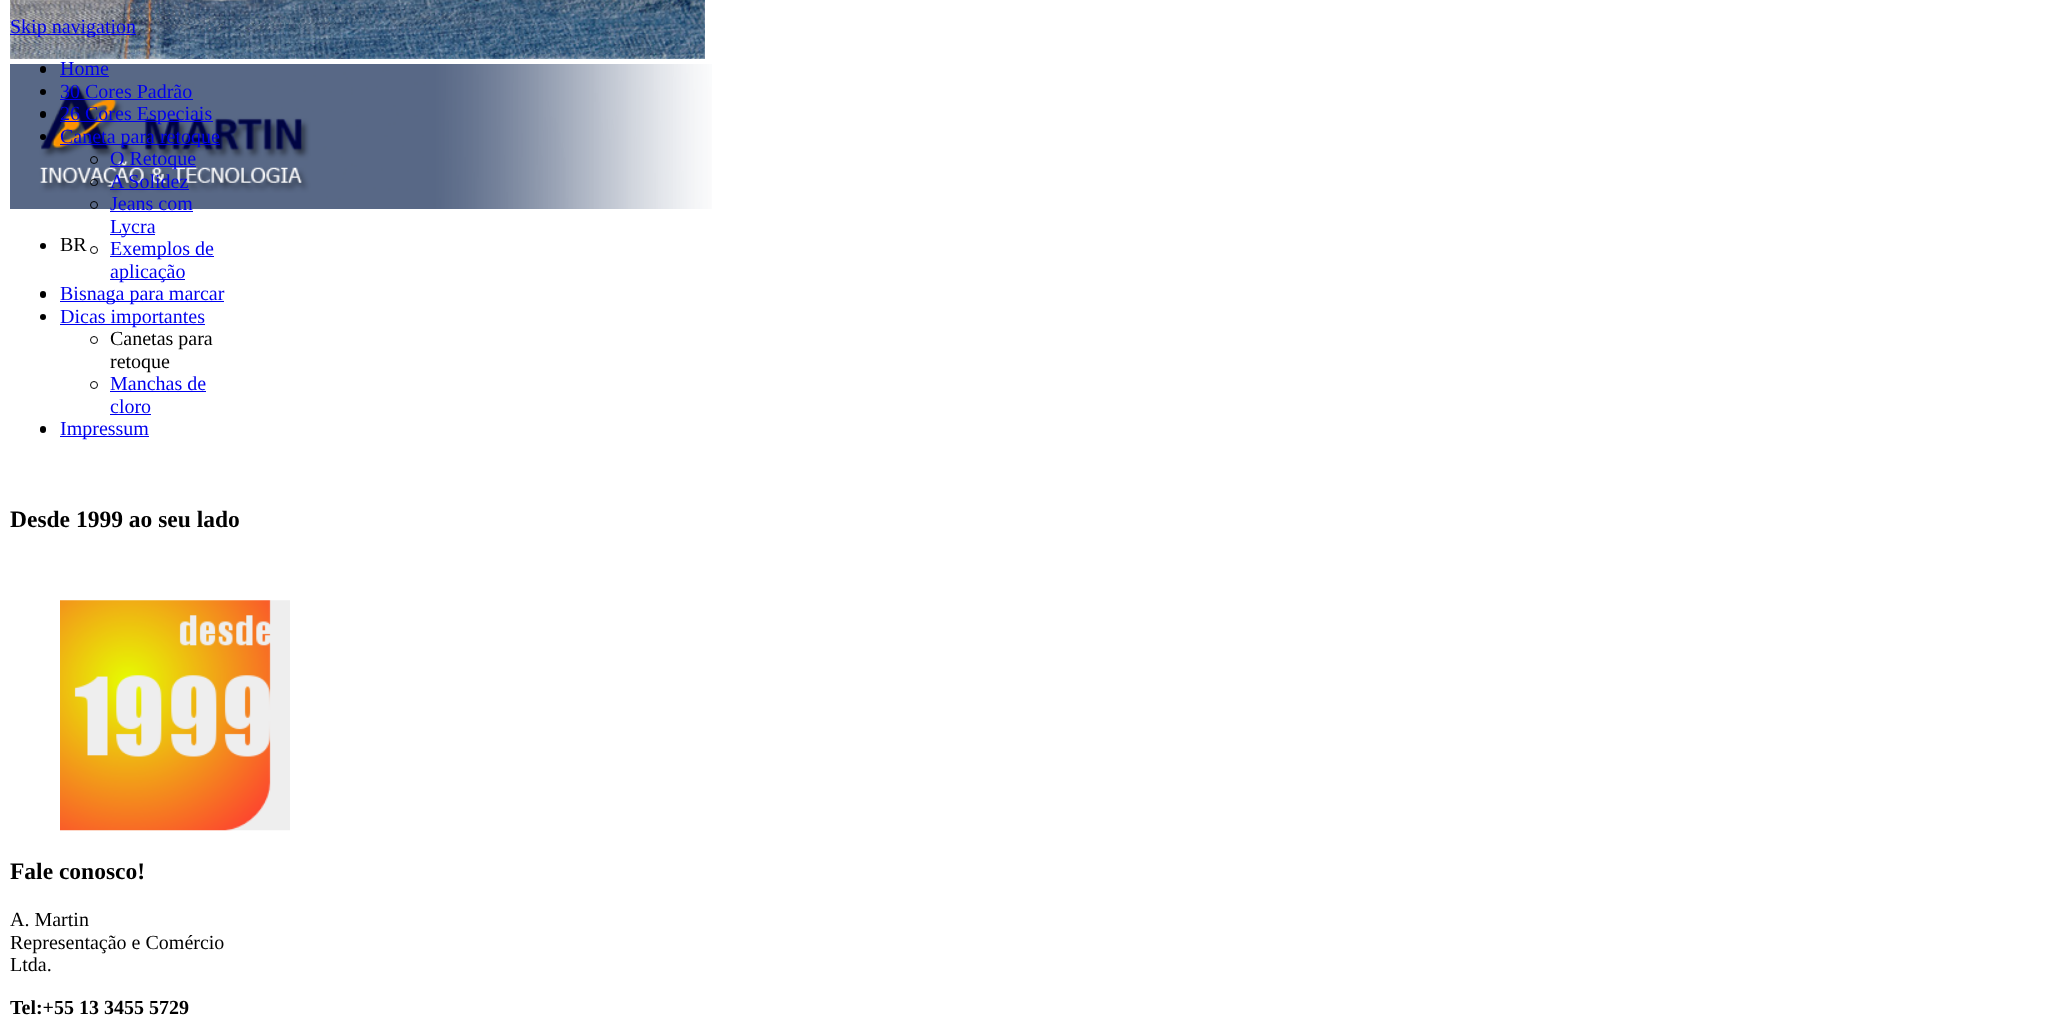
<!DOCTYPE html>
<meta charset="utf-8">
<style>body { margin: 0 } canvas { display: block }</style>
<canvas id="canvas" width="2061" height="1026"></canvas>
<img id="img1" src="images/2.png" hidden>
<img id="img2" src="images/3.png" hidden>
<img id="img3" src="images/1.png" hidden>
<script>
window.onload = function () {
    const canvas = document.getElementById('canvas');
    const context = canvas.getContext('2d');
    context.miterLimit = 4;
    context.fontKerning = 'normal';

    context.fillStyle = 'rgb(255, 255, 255)';
    context.fillRect(0, 0, 2061, 1026);
    context.drawImage(document.getElementById('img1'), 10, 0, 695, 59);
    context.fillStyle = 'rgb(0, 0, 238)';
    context.fillRect(10, 34, 126, 1);
    context.drawImage(document.getElementById('img2'), 10, 64, 702, 145);
    context.fillStyle = 'rgb(0, 0, 0)';
    context.beginPath();
    context.roundRect(40, 66, 6, 7, 3);
    context.fill();
    context.fillStyle = 'rgb(0, 0, 238)';
    context.fillRect(60, 76, 49, 1);
    context.fillStyle = 'rgb(0, 0, 0)';
    context.beginPath();
    context.arc(43, 92, 3, 0, 2 * Math.PI);
    context.fill();
    context.fillStyle = 'rgb(0, 0, 238)';
    context.fillRect(60, 99, 133, 1);
    context.fillStyle = 'rgb(0, 0, 0)';
    context.beginPath();
    context.roundRect(40, 111, 6, 7, 3);
    context.fill();
    context.fillStyle = 'rgb(0, 0, 238)';
    context.fillRect(60, 121, 153, 1);
    context.fillStyle = 'rgb(0, 0, 0)';
    context.beginPath();
    context.arc(43, 137, 3, 0, 2 * Math.PI);
    context.fill();
    context.fillStyle = 'rgb(0, 0, 238)';
    context.fillRect(60, 144, 160, 1);
    context.beginPath();
    context.arc(94, 160, 3.5, 0, 2 * Math.PI);
    context.strokeStyle = 'rgb(0, 0, 0)';
    context.stroke();
    context.fillRect(110, 166, 86, 1);
    context.beginPath();
    context.roundRect(90.5, 179.5, 7, 6, 3);
    context.stroke();
    context.fillRect(110, 189, 79, 1);
    context.beginPath();
    context.arc(94, 205, 3.5, 0, 2 * Math.PI);
    context.stroke();
    context.fillRect(110, 211, 83, 1);
    context.fillRect(110, 234, 45, 1);
    context.beginPath();
    context.arc(94, 250, 3.5, 0, 2 * Math.PI);
    context.stroke();
    context.fillRect(110, 256, 104, 1);
    context.fillRect(110, 279, 75, 1);
    context.fillStyle = 'rgb(0, 0, 0)';
    context.beginPath();
    context.roundRect(40, 291, 6, 7, 3);
    context.fill();
    context.fillStyle = 'rgb(0, 0, 238)';
    context.fillRect(60, 301, 164, 1);
    context.fillStyle = 'rgb(0, 0, 0)';
    context.beginPath();
    context.arc(43, 317, 3, 0, 2 * Math.PI);
    context.fill();
    context.fillStyle = 'rgb(0, 0, 238)';
    context.fillRect(60, 324, 145, 1);
    context.beginPath();
    context.arc(94, 340, 3.5, 0, 2 * Math.PI);
    context.stroke();
    context.beginPath();
    context.arc(94, 385, 3.5, 0, 2 * Math.PI);
    context.stroke();
    context.fillRect(110, 391, 96, 1);
    context.fillRect(110, 414, 41, 1);
    context.fillStyle = 'rgb(0, 0, 0)';
    context.beginPath();
    context.roundRect(40, 426, 6, 7, 3);
    context.fill();
    context.fillStyle = 'rgb(0, 0, 238)';
    context.fillRect(60, 436, 89, 1);
    context.drawImage(document.getElementById('img3'), 60, 600, 230, 231);
    context.fillStyle = 'rgb(0, 0, 0)';
    context.beginPath();
    context.arc(43, 246, 3, 0, 2 * Math.PI);
    context.fill();
    context.font = '20px Liberation Serif';
    context.fillStyle = 'rgb(0, 0, 238)';
    context.fillText('Skip navigation', 10, 33);
    context.fillText('Home', 60, 75);
    context.fillText('30 Cores Padrão', 60, 98);
    context.fillText('26 Cores Especiais', 60, 120);
    context.fillText('Caneta para retoque', 60, 143);
    context.fillText('O Retoque', 110, 165);
    context.fillText('A Solidez', 110, 188);
    context.fillText('Jeans com', 110, 210);
    context.fillText('Lycra', 110, 233);
    context.fillText('Exemplos de', 110, 255);
    context.fillText('aplicação', 110, 278);
    context.fillText('Bisnaga para marcar', 60, 300);
    context.fillText('Dicas importantes', 60, 323);
    context.fillStyle = 'rgb(0, 0, 0)';
    context.fillText('Canetas para', 110, 345);
    context.fillText('retoque', 110, 368);
    context.fillStyle = 'rgb(0, 0, 238)';
    context.fillText('Manchas de', 110, 390);
    context.fillText('cloro', 110, 413);
    context.fillText('Impressum', 60, 435);
    context.font = 'bold 23.5px Liberation Serif';
    context.fillStyle = 'rgb(0, 0, 0)';
    context.fillText('Desde 1999 ao seu lado', 10, 527);
    context.fillText('Fale conosco!', 10, 879);
    context.font = '20px Liberation Serif';
    context.fillText('A. Martin', 10, 926);
    context.fillText('Representação e Comércio', 10, 949);
    context.fillText('Ltda.', 10, 971);
    context.font = 'bold 20px Liberation Serif';
    context.fillText('Tel:+55 13 3455 5729', 10, 1014);
    context.font = '20px Liberation Serif';
    context.fillText('BR', 60, 251);
};
</script>
